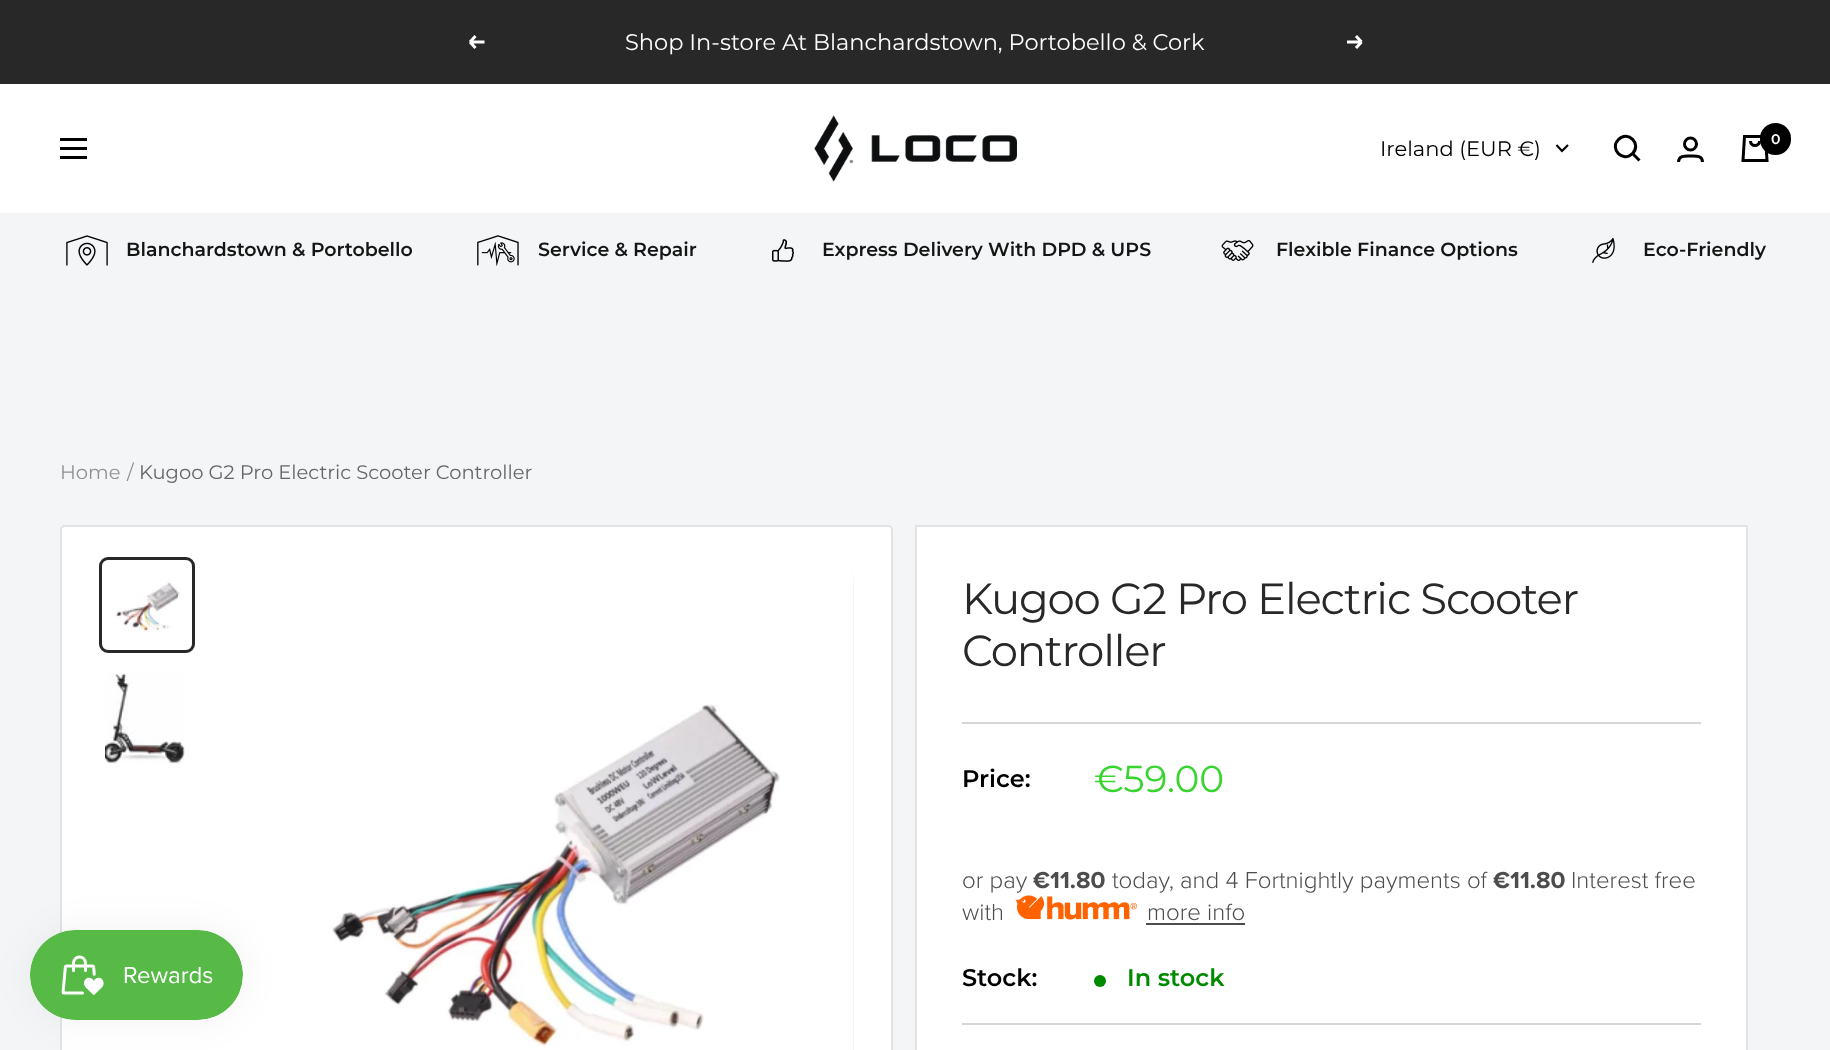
<!DOCTYPE html>
<meta charset="utf-8">
<style>body { margin: 0 } canvas { display: block }</style>
<canvas id="canvas" width="1830" height="1050"></canvas>
<img id="img1" src="images/1.png" hidden>
<img id="img2" src="images/2.png" hidden>
<img id="img3" src="images/3.png" hidden>
<img id="img4" src="images/4.png" hidden>
<img id="img5" src="images/5.png" hidden>
<img id="img6" src="images/6.png" hidden>
<img id="img7" src="images/7.png" hidden>
<img id="img8" src="images/8.png" hidden>
<img id="img9" src="images/9.png" hidden>
<img id="img10" src="images/10.png" hidden>
<img id="img11" src="images/11.png" hidden>
<script>
window.onload = function () {
    const canvas = document.getElementById('canvas');
    const context = canvas.getContext('2d');
    context.miterLimit = 4;
    context.fontKerning = 'normal';

    context.fillStyle = 'rgb(243, 245, 246)';
    context.fillRect(0, 0, 1830, 1050);
    context.fillStyle = 'rgb(40, 40, 40)';
    context.fillRect(0, 0, 1830, 84);
    context.beginPath();
    context.moveTo(484.5, 42);
    context.lineTo(470, 42);
    context.moveTo(470, 42);
    context.lineTo(475.5, 48);
    context.moveTo(470, 42);
    context.lineTo(475.5, 36);
    context.strokeStyle = 'rgb(255, 255, 255)';
    context.lineWidth = 3;
    context.stroke();
    context.beginPath();
    context.moveTo(1347, 42);
    context.lineTo(1361.5, 42);
    context.moveTo(1361.5, 42);
    context.lineTo(1356, 48);
    context.moveTo(1361.5, 42);
    context.lineTo(1356, 36);
    context.stroke();
    context.fillStyle = 'rgb(255, 255, 255)';
    context.fillRect(0, 84, 1830, 129);
    context.beginPath();
    context.moveTo(60, 139.5);
    context.lineTo(87, 139.5);
    context.moveTo(60, 157.5);
    context.lineTo(87, 157.5);
    context.closePath();
    context.moveTo(60, 148.5);
    context.lineTo(87, 148.5);
    context.closePath();
    context.strokeStyle = 'rgb(0, 0, 0)';
    context.stroke();
    context.drawImage(document.getElementById('img1'), 814, 115, 203, 67);
    context.beginPath();
    context.moveTo(1556.5, 145);
    context.lineTo(1562, 151);
    context.lineTo(1568, 145);
    context.lineWidth = 2.2;
    context.stroke();
    context.beginPath();
    context.moveTo(1632.5, 153.5);
    context.bezierCurveTo(1642, 144, 1628, 130, 1618.5, 139.5);
    context.bezierCurveTo(1609, 149, 1623, 163, 1632.5, 153.5);
    context.closePath();
    context.moveTo(1632.5, 153.5);
    context.lineTo(1639.5, 160.5);
    context.lineWidth = 3;
    context.stroke();
    context.beginPath();
    context.arc(1690.5, 144, 6, 0, 2 * Math.PI);
    context.stroke();
    context.beginPath();
    context.moveTo(1678.5, 162);
    context.bezierCurveTo(1678.5, 155, 1686, 156, 1690.5, 156);
    context.bezierCurveTo(1695, 156, 1702.5, 155, 1702.5, 162);
    context.stroke();
    context.beginPath();
    context.moveTo(1744.5, 136.5);
    context.lineTo(1765.5, 136.5);
    context.lineTo(1767, 160.5);
    context.lineTo(1743, 160.5);
    context.closePath();
    context.moveTo(1750.5, 141);
    context.bezierCurveTo(1750.5, 147, 1759.5, 147, 1759.5, 141);
    context.stroke();
    context.fillStyle = 'rgb(0, 0, 0)';
    context.beginPath();
    context.roundRect(1760, 123, 31, 32, 15.5);
    context.fill();
    context.drawImage(document.getElementById('img2'), 66, 235, 42, 31);
    context.drawImage(document.getElementById('img3'), 477, 235, 42, 31);
    context.drawImage(document.getElementById('img4'), 772, 239, 22, 23);
    context.drawImage(document.getElementById('img5'), 1221, 240, 33, 22);
    context.drawImage(document.getElementById('img6'), 1592, 238, 23, 25);
    context.fillStyle = 'rgb(255, 255, 255)';
    context.beginPath();
    context.roundRect(61, 526, 831, 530, 4);
    context.fill();
    context.strokeStyle = 'rgb(225, 227, 228)';
    context.lineWidth = 2;
    context.stroke();
    context.drawImage(document.getElementById('img7'), 116, 580, 64, 52);
    context.beginPath();
    context.roundRect(100.5, 558.5, 93, 93, 7.5);
    context.strokeStyle = 'rgb(40, 40, 40)';
    context.lineWidth = 3;
    context.stroke();
    context.drawImage(document.getElementById('img8'), 105, 671, 80, 93);
    context.fillStyle = 'rgb(243, 245, 246)';
    context.beginPath();
    context.roundRect(249, 557, 605, 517, 24);
    context.fill();
    context.drawImage(document.getElementById('img9'), 249, 557, 604, 493);
    context.fillStyle = 'rgb(255, 255, 255)';
    context.beginPath();
    context.rect(916, 526, 831, 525);
    context.fill();
    context.strokeStyle = 'rgb(225, 227, 228)';
    context.lineWidth = 2;
    context.stroke();
    context.fillStyle = 'rgb(213, 214, 215)';
    context.fillRect(962, 722, 739, 2);
    context.drawImage(document.getElementById('img10'), 1015, 895, 122, 25);
    context.fillStyle = 'rgb(77, 77, 77)';
    context.fillRect(1146, 923, 99, 2);
    context.fillStyle = 'rgb(0, 138, 0)';
    context.beginPath();
    context.arc(1100, 981, 6, 0, 2 * Math.PI);
    context.fill();
    context.fillStyle = 'rgb(213, 214, 215)';
    context.fillRect(962, 1023, 739, 2);
    context.fillStyle = 'rgba(0, 0, 0, 0.05)';
    context.filter = 'blur(19px)';
    context.beginPath();
    context.roundRect(30, 930, 213, 90, 45);
    context.fill();
    context.filter = 'none';
    context.drawImage(document.getElementById('img11'), 30, 930, 213, 90);
    context.font = '22.5px Montserrat';
    context.fillStyle = 'rgb(255, 255, 255)';
    context.fillText('Shop In-store At Blanchardstown, Portobello & Cork', 625, 50);
    context.font = '21px Montserrat';
    context.fillStyle = 'rgb(0, 0, 0)';
    context.fillText('Ireland (EUR €)', 1380, 156);
    context.font = '600 14px Montserrat';
    context.fillStyle = 'rgb(255, 255, 255)';
    context.fillText('0', 1771, 144);
    context.font = '600 19px Montserrat';
    context.fillStyle = 'rgb(21, 21, 21)';
    context.fillText('Blanchardstown & Portobello', 126, 256);
    context.fillText('Service & Repair', 538, 256);
    context.fillText('Express Delivery With DPD & UPS', 822, 256);
    context.fillText('Flexible Finance Options', 1276, 256);
    context.fillText('Eco-Friendly', 1643, 256);
    context.font = '19.5px Montserrat';
    context.fillStyle = 'rgb(144, 145, 145)';
    context.fillText('Home', 60, 479);
    context.fillText('/', 127, 479);
    context.fillStyle = 'rgb(101, 102, 102)';
    context.fillText('Kugoo G2 Pro Electric Scooter Controller', 139, 479);
    context.letterSpacing = '-1.2px';
    context.font = '43.5px Montserrat';
    context.fillStyle = 'rgb(40, 40, 40)';
    context.fillText('Kugoo G2 Pro Electric Scooter', 962, 614);
    context.fillText('Controller', 962, 666);
    context.letterSpacing = '0px';
    context.font = '600 24px Montserrat';
    context.fillStyle = 'rgb(0, 0, 0)';
    context.fillText('Price:', 962, 787);
    context.font = '37.5px Montserrat';
    context.fillStyle = 'rgb(56, 212, 48)';
    context.fillText('€59.00', 1094, 792);
    context.font = '300 24px Proxima Nova';
    context.fillStyle = 'rgb(77, 77, 77)';
    context.fillText('or pay', 962, 888);
    context.font = 'bold 24px Proxima Nova';
    context.fillText('€11.80', 1033, 888);
    context.font = '300 24px Proxima Nova';
    context.fillText('today, and 4 Fortnightly payments of', 1112, 888);
    context.font = 'bold 24px Proxima Nova';
    context.fillText('€11.80', 1493, 888);
    context.font = '300 24px Proxima Nova';
    context.fillText('Interest free', 1571, 888);
    context.fillText('with', 962, 920);
    context.fillText('more info', 1147, 920);
    context.font = '600 24px Montserrat';
    context.fillStyle = 'rgb(0, 0, 0)';
    context.fillText('Stock:', 962, 986);
    context.fillStyle = 'rgb(0, 138, 0)';
    context.fillText('In stock', 1127, 986);
};
</script>
